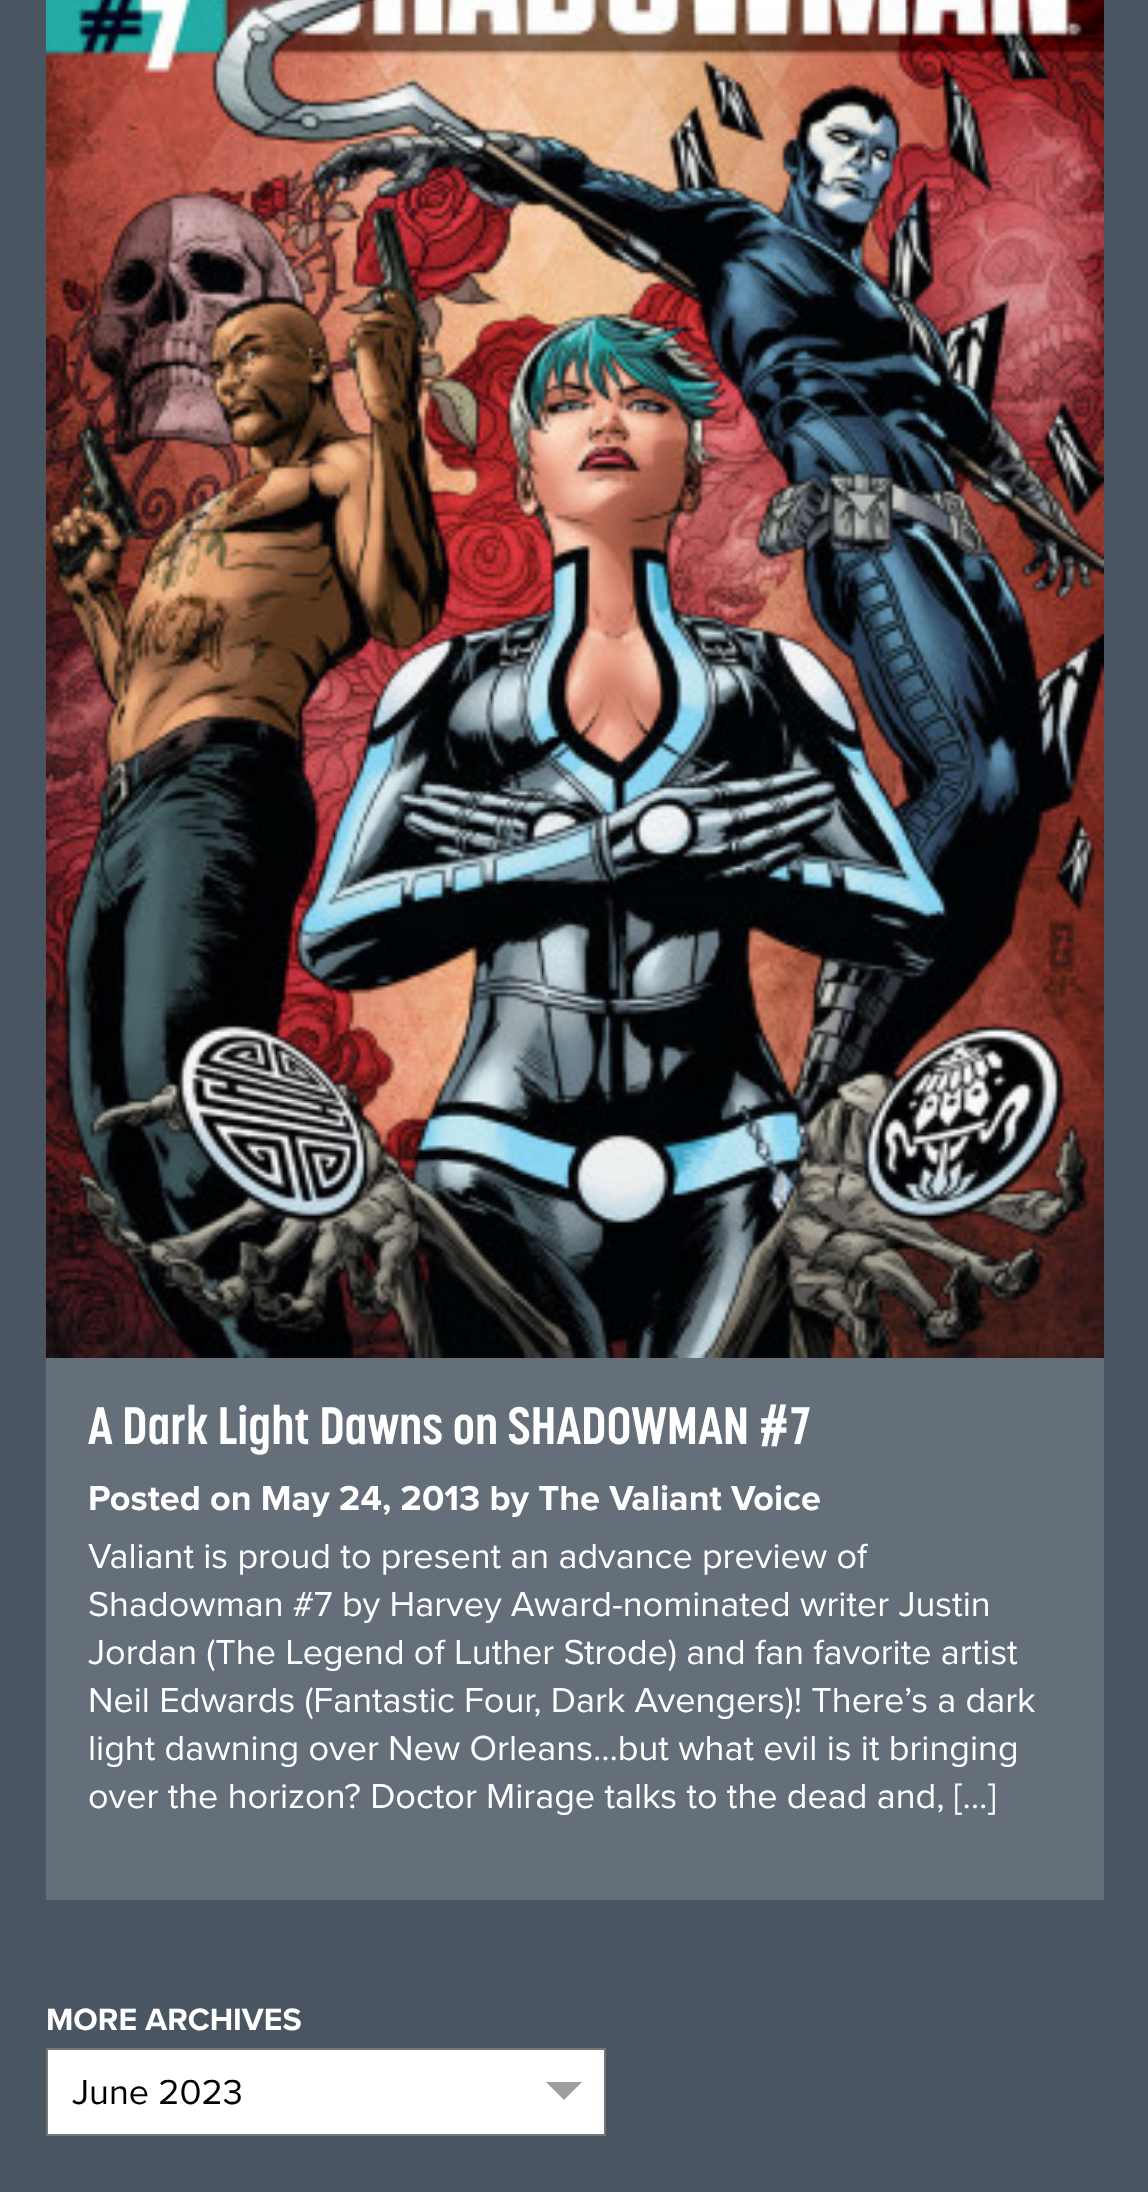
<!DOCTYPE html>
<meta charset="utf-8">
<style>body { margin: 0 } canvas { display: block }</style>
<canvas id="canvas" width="1148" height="2192"></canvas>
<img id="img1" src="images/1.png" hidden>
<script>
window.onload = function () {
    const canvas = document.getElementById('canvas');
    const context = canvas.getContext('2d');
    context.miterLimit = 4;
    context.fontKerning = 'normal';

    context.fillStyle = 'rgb(73, 86, 97)';
    context.fillRect(0, 0, 1148, 2192);
    context.fillStyle = 'rgb(100, 111, 121)';
    context.fillRect(46, 1358, 1058, 542);
    context.drawImage(document.getElementById('img1'), 46, 0, 1058, 1358);
    context.fillStyle = 'rgb(255, 255, 255)';
    context.beginPath();
    context.rect(47, 2049, 558, 86);
    context.fill();
    context.strokeStyle = 'rgb(118, 118, 118)';
    context.lineWidth = 2;
    context.stroke();
    context.fillStyle = 'rgb(158, 158, 158)';
    context.beginPath();
    context.moveTo(546, 2082);
    context.lineTo(582, 2082);
    context.lineTo(564, 2100);
    context.closePath();
    context.fill();
    context.font = 'bold 52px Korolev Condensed';
    context.fillStyle = 'rgb(255, 255, 255)';
    context.fillText('A Dark Light Dawns on SHADOWMAN #7', 88, 1444);
    context.font = 'bold 36px Proxima Nova';
    context.fillText('Posted on May 24, 2013 by The Valiant Voice', 88, 1510);
    context.font = '36px Proxima Nova';
    context.fillText('Valiant is proud to present an advance preview of', 88, 1568);
    context.fillText('Shadowman #7 by Harvey Award-nominated writer Justin', 88, 1616);
    context.fillText('Jordan (The Legend of Luther Strode) and fan favorite artist', 88, 1664);
    context.fillText('Neil Edwards (Fantastic Four, Dark Avengers)! There’s a dark', 88, 1712);
    context.fillText('light dawning over New Orleans…but what evil is it bringing', 88, 1760);
    context.fillText('over the horizon? Doctor Mirage talks to the dead and, […]', 88, 1808);
    context.font = 'bold 32px Proxima Nova';
    context.fillText('MORE ARCHIVES', 46, 2030);
    context.font = '36px Proxima Nova';
    context.fillStyle = 'rgb(0, 0, 0)';
    context.fillText('June 2023', 72, 2104);
};
</script>
